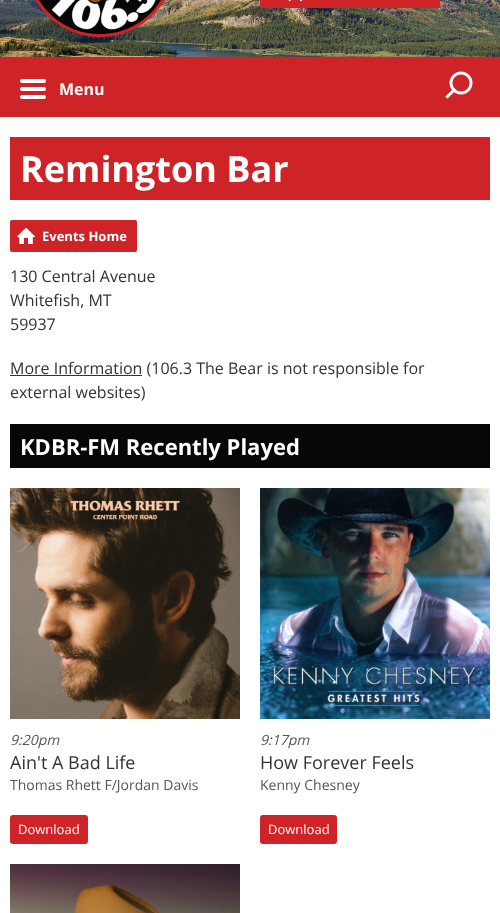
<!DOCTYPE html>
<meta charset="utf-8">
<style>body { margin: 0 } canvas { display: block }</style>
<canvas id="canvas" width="500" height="913"></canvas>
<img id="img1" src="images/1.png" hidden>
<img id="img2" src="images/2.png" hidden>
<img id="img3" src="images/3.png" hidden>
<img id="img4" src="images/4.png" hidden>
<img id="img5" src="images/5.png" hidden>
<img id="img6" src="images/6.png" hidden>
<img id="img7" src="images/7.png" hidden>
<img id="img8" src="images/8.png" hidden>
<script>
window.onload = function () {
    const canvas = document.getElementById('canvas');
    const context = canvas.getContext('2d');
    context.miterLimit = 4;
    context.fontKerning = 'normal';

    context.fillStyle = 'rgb(255, 255, 255)';
    context.fillRect(0, 0, 500, 913);
    context.drawImage(document.getElementById('img1'), 0, 0, 500, 57);
    context.drawImage(document.getElementById('img2'), 35, 0, 130, 37);
    context.fillStyle = 'rgb(206, 35, 39)';
    context.fillRect(260, 0, 180, 8);
    context.drawImage(document.getElementById('img3'), 288, 0, 15, 2);
    context.fillRect(0, 57, 500, 60);
    context.fillStyle = 'rgb(255, 255, 255)';
    context.beginPath();
    context.roundRect(20, 79, 26, 4, 2);
    context.fill();
    context.beginPath();
    context.roundRect(20, 87, 26, 4, 2);
    context.fill();
    context.beginPath();
    context.roundRect(20, 95, 26, 4, 2);
    context.fill();
    context.drawImage(document.getElementById('img4'), 445, 71, 28, 28);
    context.fillStyle = 'rgb(206, 35, 39)';
    context.fillRect(10, 137, 480, 63);
    context.beginPath();
    context.roundRect(10, 220, 127, 32, 2);
    context.fill();
    context.drawImage(document.getElementById('img5'), 17, 228, 18, 16);
    context.fillStyle = 'rgb(51, 51, 51)';
    context.fillRect(10, 375, 132, 1);
    context.fillStyle = 'rgb(7, 7, 8)';
    context.fillRect(10, 424, 480, 44);
    context.drawImage(document.getElementById('img6'), 10, 488, 230, 231);
    context.fillStyle = 'rgb(206, 35, 39)';
    context.beginPath();
    context.roundRect(10, 815, 78, 29, 3);
    context.fill();
    context.drawImage(document.getElementById('img7'), 260, 488, 230, 231);
    context.beginPath();
    context.roundRect(260, 815, 77, 29, 3);
    context.fill();
    context.drawImage(document.getElementById('img8'), 10, 864, 230, 49);
    context.font = 'bold 16px Open Sans';
    context.fillStyle = 'rgb(255, 255, 255)';
    context.fillText('Menu', 59, 95);
    context.font = 'bold 36px Open Sans';
    context.fillText('Remington Bar', 20, 182);
    context.font = 'bold 13px Open Sans';
    context.fillText('Events Home', 42, 241);
    context.font = '16px Open Sans';
    context.fillStyle = 'rgb(51, 51, 51)';
    context.fillText('130 Central Avenue', 10, 282);
    context.fillText('Whitefish, MT', 10, 306);
    context.fillText('59937', 10, 330);
    context.fillText('More Information (106.3 The Bear is not responsible for', 10, 374);
    context.fillText('external websites)', 10, 398);
    context.font = 'bold 22px Open Sans';
    context.fillStyle = 'rgb(255, 255, 255)';
    context.fillText('KDBR-FM Recently Played', 20, 455);
    context.font = 'italic 14px Open Sans';
    context.fillStyle = 'rgb(85, 85, 85)';
    context.fillText('9:20pm', 10, 745);
    context.font = '18px Open Sans';
    context.fillStyle = 'rgb(51, 51, 51)';
    context.fillText('Ain\'t A Bad Life', 10, 769);
    context.font = '14px Open Sans';
    context.fillStyle = 'rgb(85, 85, 85)';
    context.fillText('Thomas Rhett F/Jordan Davis', 10, 790);
    context.font = '13px Open Sans';
    context.fillStyle = 'rgb(255, 255, 255)';
    context.fillText('Download', 18, 834);
    context.font = 'italic 14px Open Sans';
    context.fillStyle = 'rgb(85, 85, 85)';
    context.fillText('9:17pm', 260, 745);
    context.font = '18px Open Sans';
    context.fillStyle = 'rgb(51, 51, 51)';
    context.fillText('How Forever Feels', 260, 769);
    context.font = '14px Open Sans';
    context.fillStyle = 'rgb(85, 85, 85)';
    context.fillText('Kenny Chesney', 260, 790);
    context.font = '13px Open Sans';
    context.fillStyle = 'rgb(255, 255, 255)';
    context.fillText('Download', 268, 834);
};
</script>
